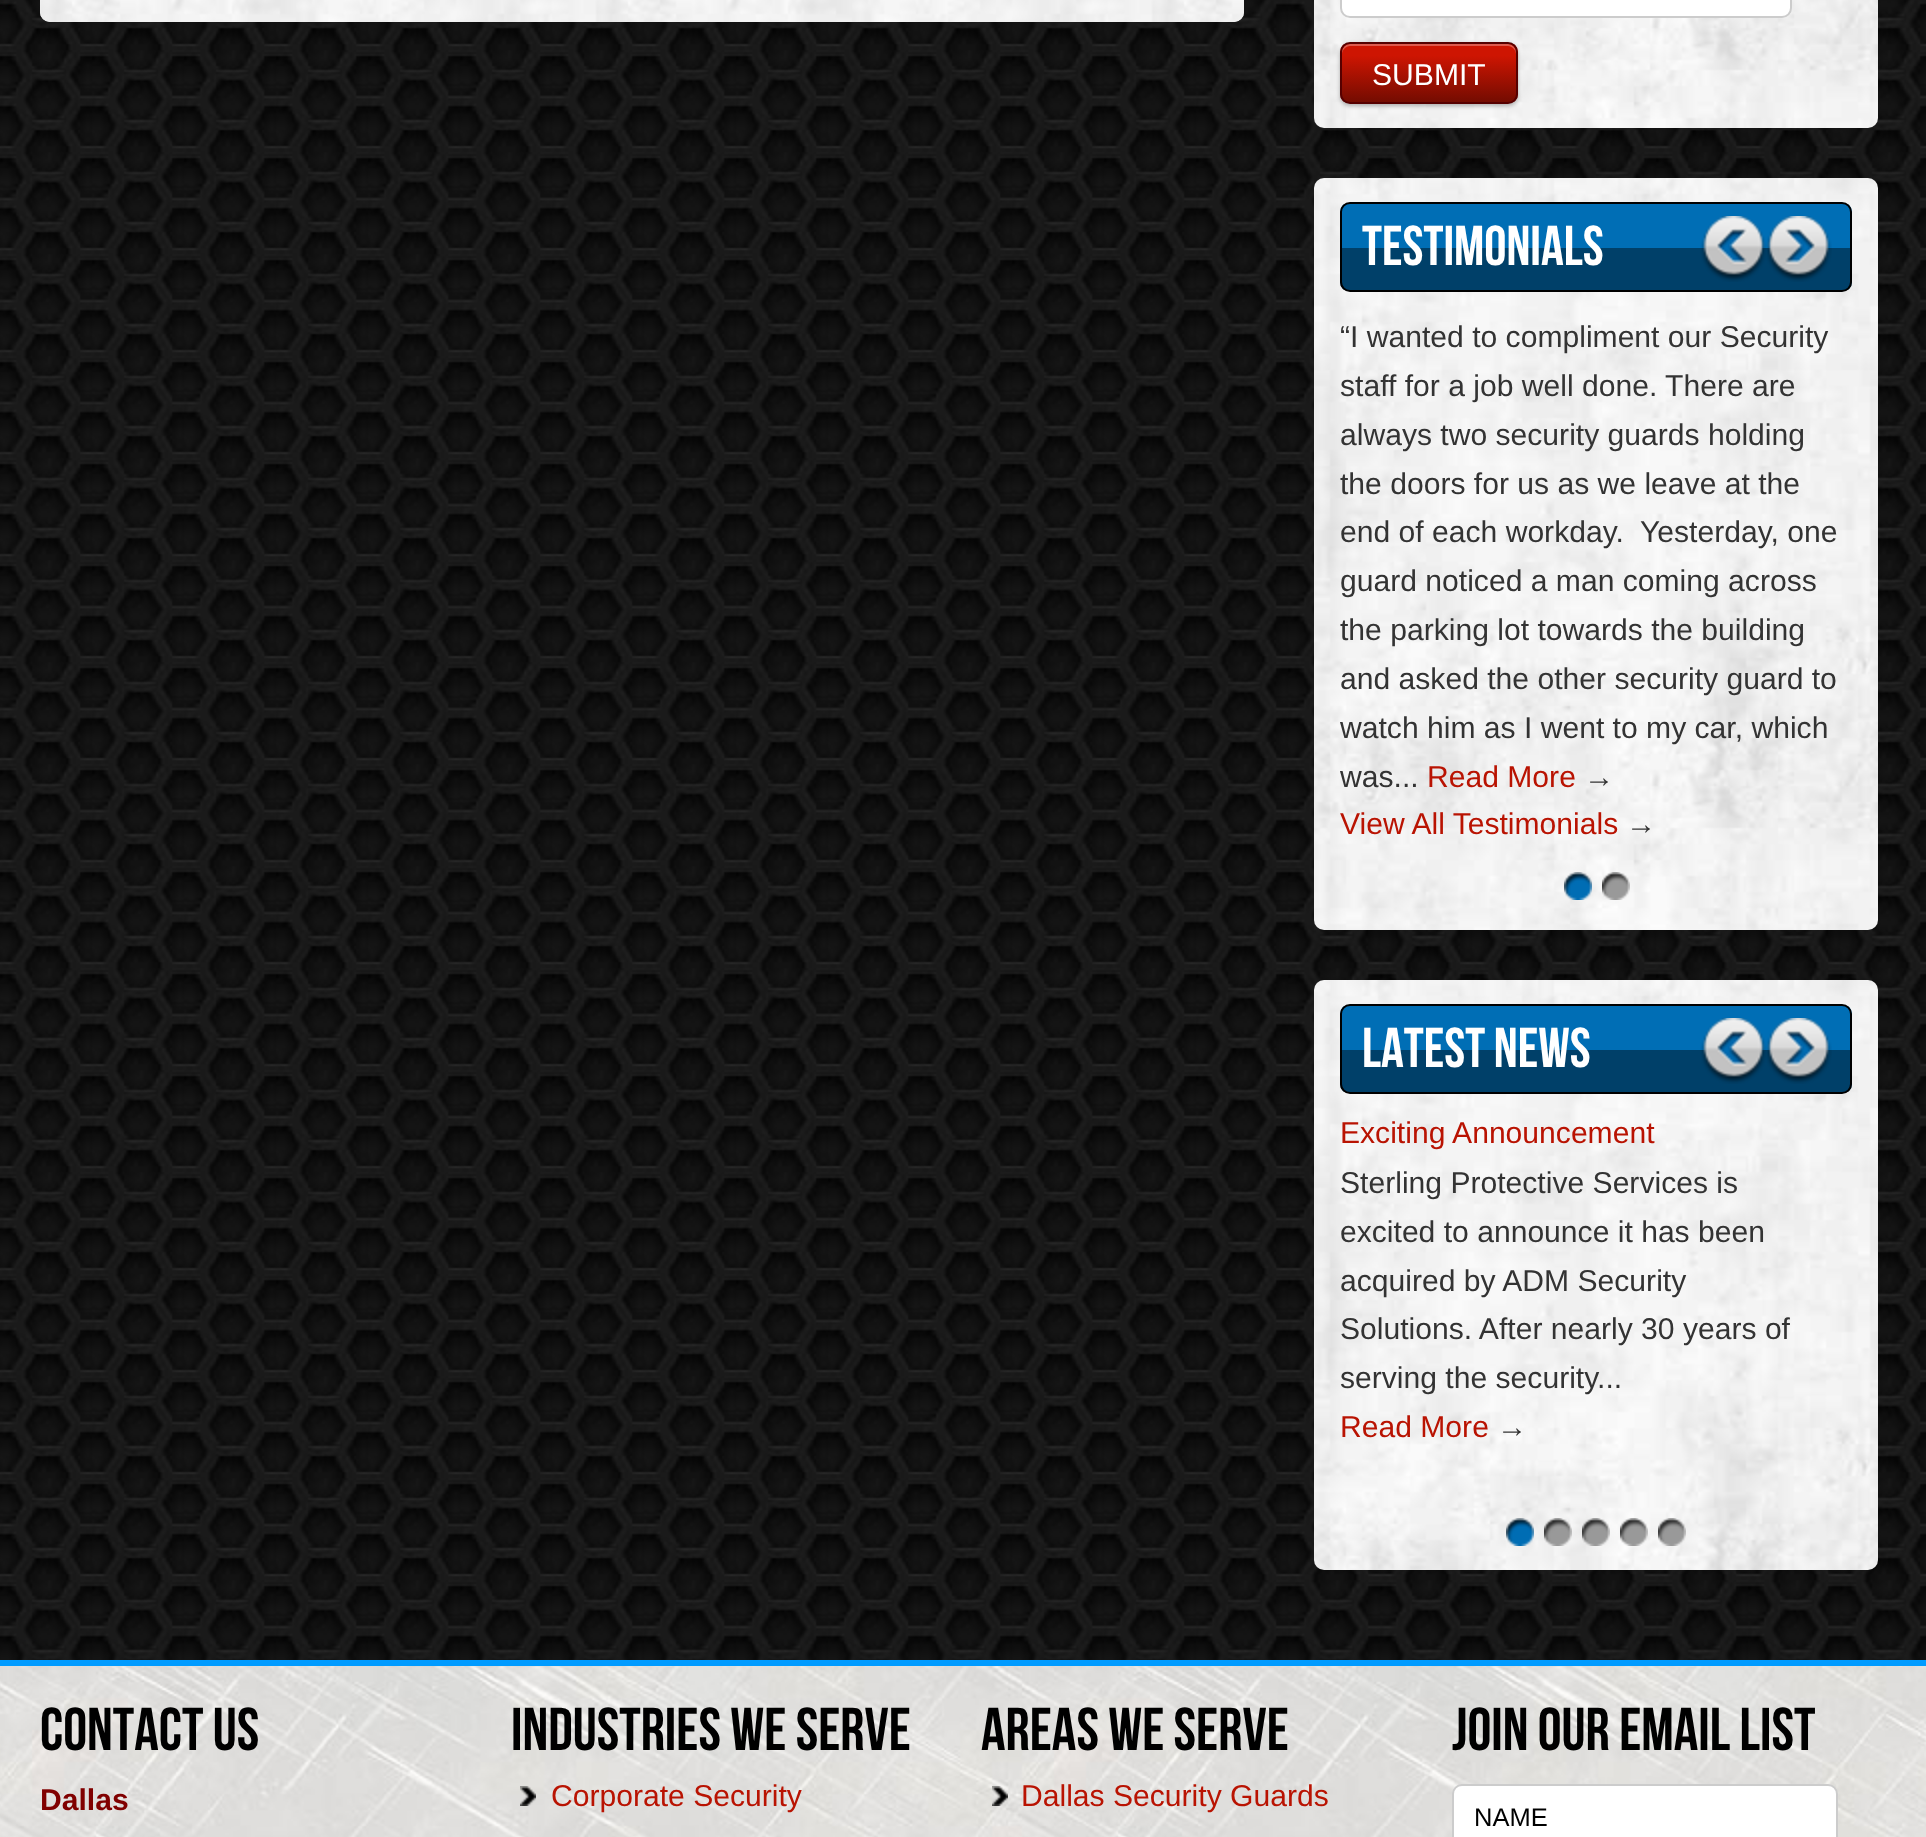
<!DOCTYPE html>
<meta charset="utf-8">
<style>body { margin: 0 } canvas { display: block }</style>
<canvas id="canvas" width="1926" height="1837"></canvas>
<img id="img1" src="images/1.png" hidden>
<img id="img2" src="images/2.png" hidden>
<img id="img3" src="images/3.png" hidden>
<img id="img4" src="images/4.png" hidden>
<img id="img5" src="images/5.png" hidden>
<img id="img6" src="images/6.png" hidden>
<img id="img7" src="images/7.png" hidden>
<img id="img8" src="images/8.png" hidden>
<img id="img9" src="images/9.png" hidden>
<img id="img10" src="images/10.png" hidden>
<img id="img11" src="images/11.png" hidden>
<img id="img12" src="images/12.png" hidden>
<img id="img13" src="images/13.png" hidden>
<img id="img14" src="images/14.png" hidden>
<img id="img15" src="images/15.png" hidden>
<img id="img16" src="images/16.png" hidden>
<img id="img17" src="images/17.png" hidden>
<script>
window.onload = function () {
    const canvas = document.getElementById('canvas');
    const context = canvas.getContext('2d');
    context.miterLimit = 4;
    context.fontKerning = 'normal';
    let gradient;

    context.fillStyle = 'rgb(255, 255, 255)';
    context.fillRect(0, 0, 1926, 1837);
    context.drawImage(document.getElementById('img1'), 0, 0, 1926, 1660);
    context.fillStyle = 'rgb(243, 243, 243)';
    context.beginPath();
    context.roundRect(40, -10, 1204, 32, 10);
    context.fill();
    context.drawImage(document.getElementById('img2'), 40, 0, 1204, 22);
    context.drawImage(document.getElementById('img3'), 1314, 0, 564, 128);
    context.fillStyle = 'rgb(255, 255, 255)';
    context.beginPath();
    context.roundRect(1341, -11, 450, 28, 9);
    context.fill();
    context.strokeStyle = 'rgb(204, 204, 204)';
    context.lineWidth = 2;
    context.stroke();
    context.fillStyle = 'rgba(0, 0, 0, 0.29)';
    context.filter = 'blur(2px)';
    context.beginPath();
    context.roundRect(1340, 44, 178, 62, 10);
    context.fill();
    context.filter = 'none';
    context.save();
    context.beginPath();
    context.roundRect(1340, 42, 178, 62, 10);
    context.clip();
    gradient = context.createLinearGradient(1342, 44, 1342, 102);
    gradient.addColorStop(0.2, 'rgb(206, 21, 2)');
    gradient.addColorStop(1, 'rgb(116, 12, 1)');
    context.fillStyle = gradient;
    context.fillRect(1340, 44, 178, 58);
    context.restore();
    context.fillStyle = 'rgb(221, 91, 78)';
    context.beginPath();
    context.moveTo(1350, 46);
    context.lineTo(1508, 46);
    context.bezierCurveTo(1512, 46, 1516, 50, 1516, 54);
    context.lineTo(1516, 52);
    context.bezierCurveTo(1516, 48, 1512, 44, 1508, 44);
    context.lineTo(1350, 44);
    context.bezierCurveTo(1346, 44, 1342, 48, 1342, 52);
    context.lineTo(1342, 54);
    context.bezierCurveTo(1342, 50, 1346, 46, 1350, 46);
    context.closePath();
    context.fill();
    context.beginPath();
    context.roundRect(1341, 43, 176, 60, 9);
    context.strokeStyle = 'rgb(86, 0, 0)';
    context.stroke();
    context.drawImage(document.getElementById('img4'), 1314, 178, 564, 752);
    context.save();
    context.beginPath();
    context.roundRect(1340, 202, 512, 90, 10);
    context.clip();
    context.fillStyle = 'rgb(0, 110, 181)';
    context.fillRect(1340, 204, 512, 44);
    context.fillStyle = 'rgb(0, 64, 105)';
    context.fillRect(1340, 248, 512, 42);
    context.restore();
    context.beginPath();
    context.roundRect(1341, 203, 510, 88, 9);
    context.strokeStyle = 'rgb(0, 0, 0)';
    context.stroke();
    context.drawImage(document.getElementById('img5'), 1700, 216, 66, 66);
    context.drawImage(document.getElementById('img6'), 1766, 216, 66, 66);
    context.drawImage(document.getElementById('img7'), 1564, 872, 28, 28);
    context.drawImage(document.getElementById('img8'), 1602, 872, 28, 28);
    context.drawImage(document.getElementById('img9'), 1314, 980, 564, 590);
    context.save();
    context.beginPath();
    context.roundRect(1340, 1004, 512, 90, 10);
    context.clip();
    context.fillStyle = 'rgb(0, 110, 181)';
    context.fillRect(1340, 1006, 512, 44);
    context.fillStyle = 'rgb(0, 64, 105)';
    context.fillRect(1340, 1050, 512, 42);
    context.restore();
    context.beginPath();
    context.roundRect(1341, 1005, 510, 88, 9);
    context.stroke();
    context.drawImage(document.getElementById('img5'), 1700, 1018, 66, 66);
    context.drawImage(document.getElementById('img6'), 1766, 1018, 66, 66);
    context.drawImage(document.getElementById('img10'), 1506, 1518, 28, 28);
    context.drawImage(document.getElementById('img11'), 1544, 1518, 28, 28);
    context.drawImage(document.getElementById('img12'), 1582, 1518, 28, 28);
    context.drawImage(document.getElementById('img13'), 1620, 1518, 28, 28);
    context.drawImage(document.getElementById('img14'), 1658, 1518, 28, 28);
    context.drawImage(document.getElementById('img15'), 0, 1666, 1926, 171);
    context.fillStyle = 'rgb(0, 155, 255)';
    context.fillRect(0, 1660, 1926, 6);
    context.drawImage(document.getElementById('img16'), 520, 1786, 16, 20);
    context.drawImage(document.getElementById('img17'), 992, 1786, 16, 20);
    context.fillStyle = 'rgb(255, 255, 255)';
    context.beginPath();
    context.roundRect(1453, 1785, 384, 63, 9);
    context.fill();
    context.strokeStyle = 'rgb(204, 204, 204)';
    context.stroke();
    context.font = '30.1px Liberation Sans';
    context.fillText('SUBMIT', 1372, 85);
    context.font = '56px Bebas Neue';
    context.fillText('TESTIMONIALS', 1362, 265);
    context.font = '30.1px Liberation Sans';
    context.fillStyle = 'rgb(51, 51, 51)';
    context.fillText('“I wanted to compliment our Security', 1340, 347);
    context.fillText('staff for a job well done. There are', 1340, 396);
    context.fillText('always two security guards holding', 1340, 445);
    context.fillText('the doors for us as we leave at the', 1340, 494);
    context.fillText('end of each workday.  Yesterday, one', 1340, 542);
    context.fillText('guard noticed a man coming across', 1340, 591);
    context.fillText('the parking lot towards the building', 1340, 640);
    context.fillText('and asked the other security guard to', 1340, 689);
    context.fillText('watch him as I went to my car, which', 1340, 738);
    context.fillText('was...', 1340, 787);
    context.fillStyle = 'rgb(185, 19, 2)';
    context.fillText('Read More', 1427, 787);
    context.fillStyle = 'rgb(51, 51, 51)';
    context.fillText('→', 1584, 787);
    context.fillStyle = 'rgb(185, 19, 2)';
    context.fillText('View All Testimonials', 1340, 834);
    context.fillStyle = 'rgb(51, 51, 51)';
    context.fillText('→', 1626, 834);
    context.font = '56px Bebas Neue';
    context.fillStyle = 'rgb(255, 255, 255)';
    context.fillText('LATEST NEWS', 1362, 1067);
    context.font = '30.1px Liberation Sans';
    context.fillStyle = 'rgb(185, 19, 2)';
    context.fillText('Exciting Announcement', 1340, 1143);
    context.fillStyle = 'rgb(51, 51, 51)';
    context.fillText('Sterling Protective Services is', 1340, 1193);
    context.fillText('excited to announce it has been', 1340, 1242);
    context.fillText('acquired by ADM Security', 1340, 1291);
    context.fillText('Solutions. After nearly 30 years of', 1340, 1339);
    context.fillText('serving the security...', 1340, 1388);
    context.fillStyle = 'rgb(185, 19, 2)';
    context.fillText('Read More', 1340, 1437);
    context.fillStyle = 'rgb(51, 51, 51)';
    context.fillText('→', 1497, 1437);
    context.font = '60.25px Bebas Neue';
    context.fillStyle = 'rgb(0, 0, 0)';
    context.fillText('CONTACT US', 40, 1750);
    context.font = 'bold 30.1px Liberation Sans';
    context.fillStyle = 'rgb(128, 0, 0)';
    context.fillText('Dallas', 40, 1810);
    context.font = '60.25px Bebas Neue';
    context.fillStyle = 'rgb(0, 0, 0)';
    context.fillText('INDUSTRIES WE SERVE', 511, 1750);
    context.font = '30.1px Liberation Sans';
    context.fillStyle = 'rgb(185, 19, 2)';
    context.fillText('Corporate Security', 551, 1806);
    context.font = '60.25px Bebas Neue';
    context.fillStyle = 'rgb(0, 0, 0)';
    context.fillText('AREAS WE SERVE', 981, 1750);
    context.font = '30.1px Liberation Sans';
    context.fillStyle = 'rgb(185, 19, 2)';
    context.fillText('Dallas Security Guards', 1021, 1806);
    context.font = '60.25px Bebas Neue';
    context.fillStyle = 'rgb(0, 0, 0)';
    context.fillText('JOIN OUR EMAIL LIST', 1452, 1750);
    context.font = '25.5px Liberation Sans';
    context.fillText('NAME', 1474, 1826);
};
</script>
